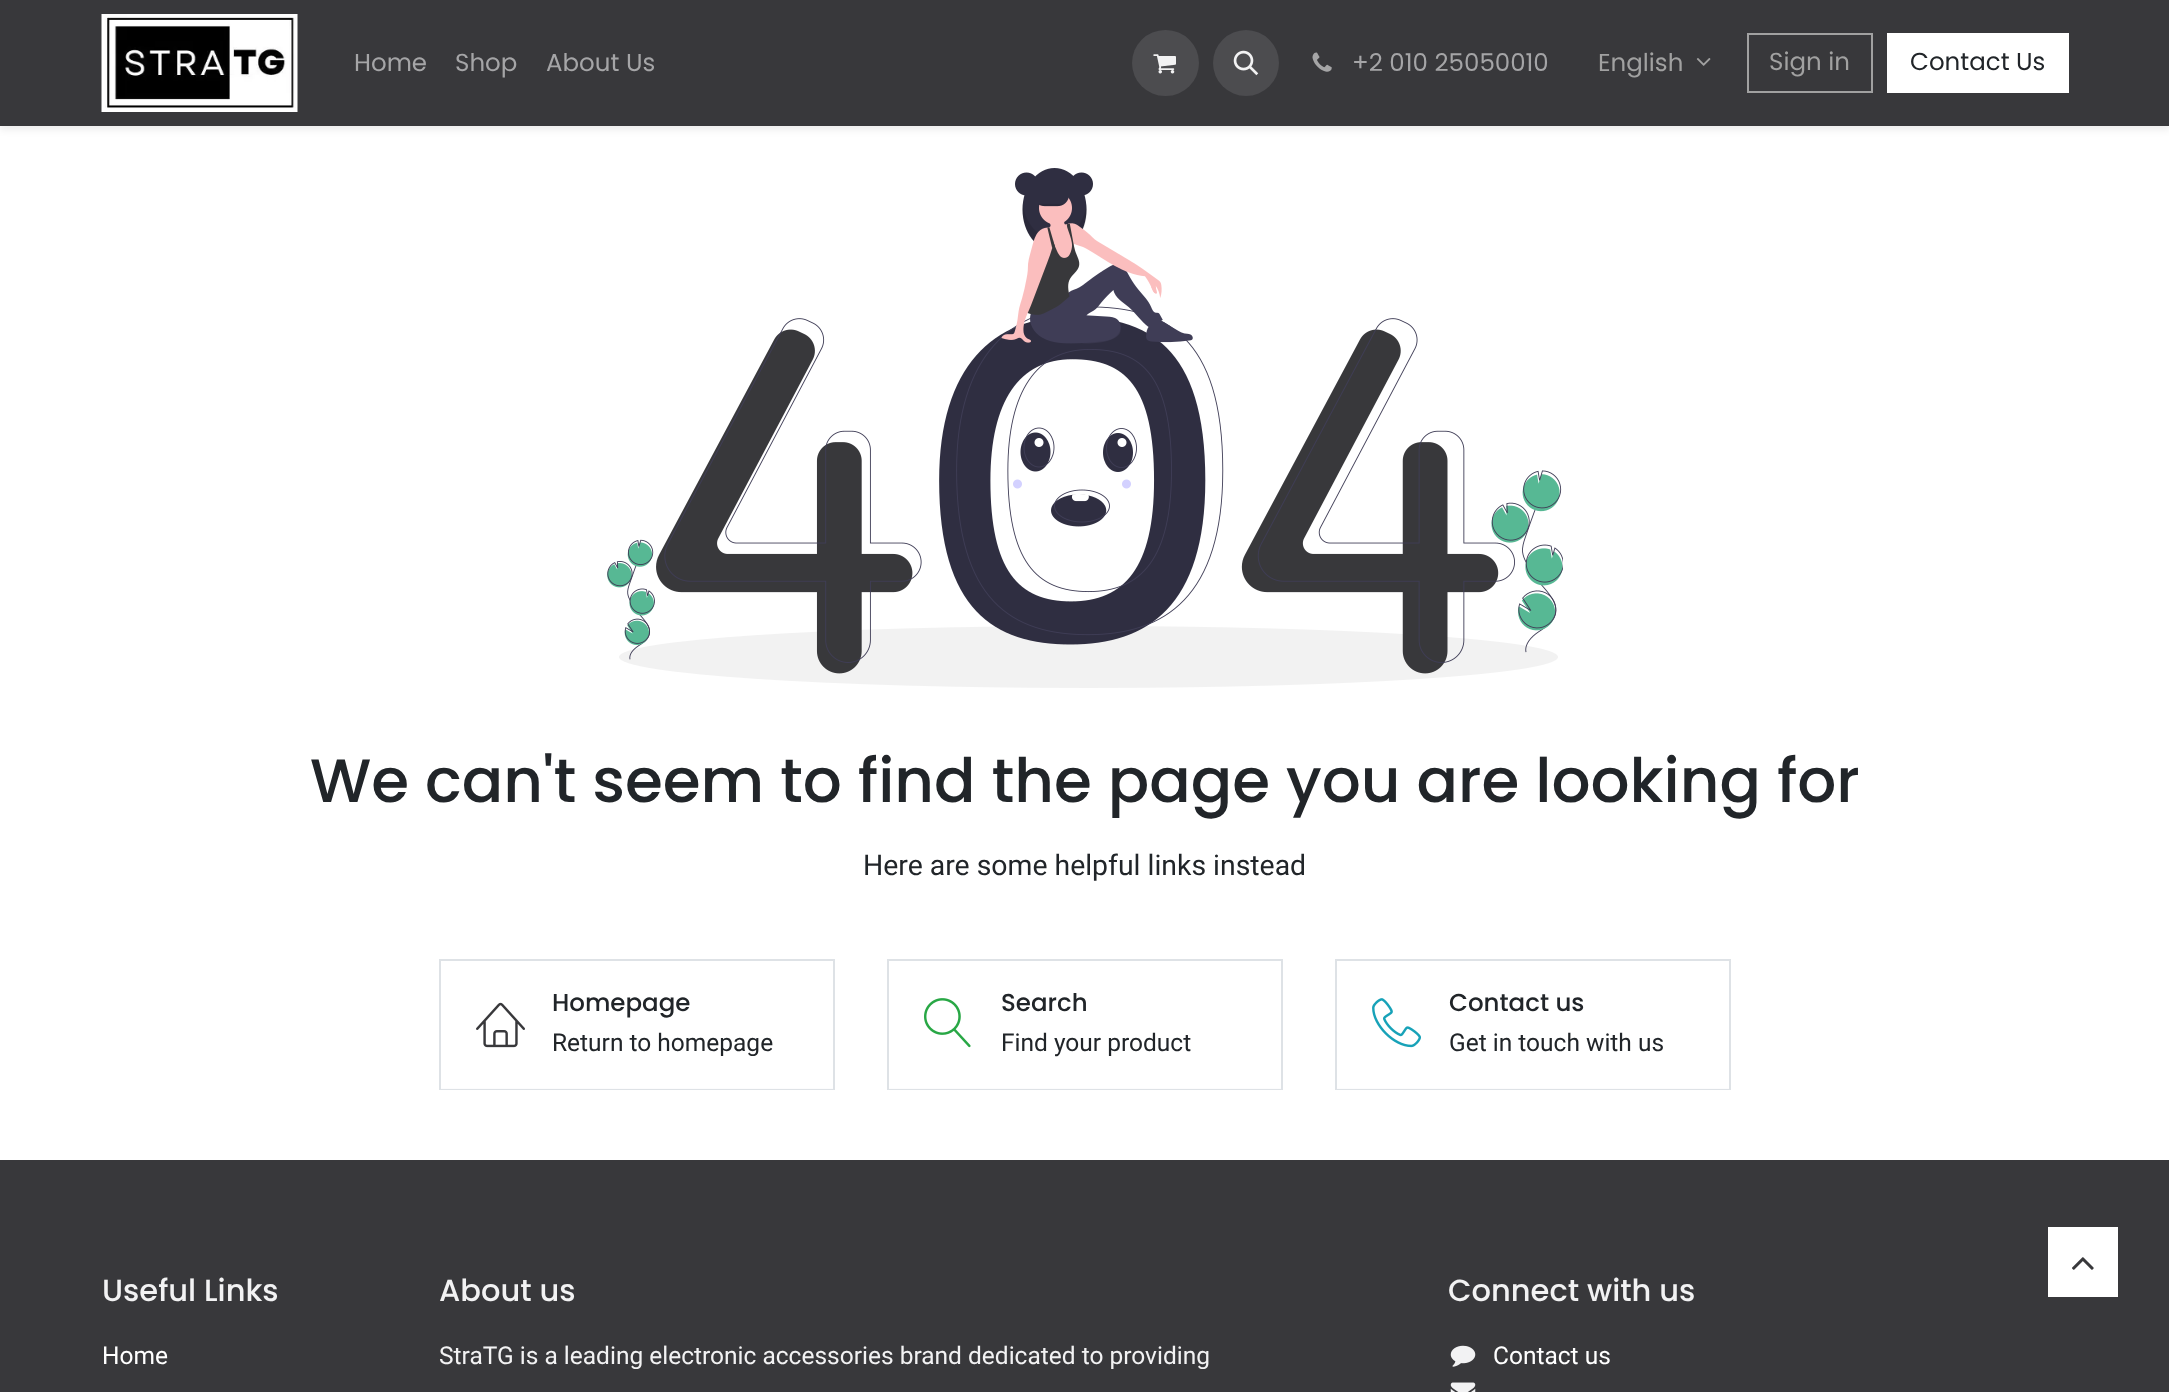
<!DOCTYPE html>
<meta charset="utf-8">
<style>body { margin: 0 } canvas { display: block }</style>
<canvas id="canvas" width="2169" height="1392"></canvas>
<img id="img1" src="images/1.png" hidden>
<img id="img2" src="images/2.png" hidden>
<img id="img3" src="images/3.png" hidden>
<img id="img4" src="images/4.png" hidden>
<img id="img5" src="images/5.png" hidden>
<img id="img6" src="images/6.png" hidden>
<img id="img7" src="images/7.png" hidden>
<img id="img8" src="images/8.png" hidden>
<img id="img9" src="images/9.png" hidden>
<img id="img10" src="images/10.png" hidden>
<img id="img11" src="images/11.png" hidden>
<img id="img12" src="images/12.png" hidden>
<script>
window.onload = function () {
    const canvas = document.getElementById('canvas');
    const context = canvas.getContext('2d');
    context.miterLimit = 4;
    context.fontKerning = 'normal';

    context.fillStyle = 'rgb(255, 255, 255)';
    context.fillRect(0, 0, 2169, 1392);
    context.fillStyle = 'rgba(0, 0, 0, 0.07)';
    context.filter = 'blur(3.5px)';
    context.beginPath();
    context.rect(0, 4, 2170, 126);
    context.fill();
    context.filter = 'none';
    context.fillStyle = 'rgb(56, 56, 59)';
    context.fillRect(0, 0, 2169, 126);
    context.drawImage(document.getElementById('img1'), 101, 14, 197, 98);
    context.fillStyle = 'rgb(76, 76, 79)';
    context.beginPath();
    context.roundRect(1132, 30, 67, 66, 33);
    context.fill();
    context.drawImage(document.getElementById('img2'), 1153, 54, 23, 20);
    context.beginPath();
    context.arc(1246, 63, 33, 0, 2 * Math.PI);
    context.fill();
    context.drawImage(document.getElementById('img3'), 1233, 50, 26, 26);
    context.drawImage(document.getElementById('img4'), 1312, 52, 20, 20);
    context.drawImage(document.getElementById('img5'), 1696, 58, 15, 8);
    context.strokeStyle = 'rgb(161, 161, 161)';
    context.lineWidth = 2;
    context.strokeRect(1748, 34, 124, 58);
    context.fillStyle = 'rgb(255, 255, 255)';
    context.fillRect(1887, 33, 182, 60);
    context.drawImage(document.getElementById('img6'), 607, 168, 956, 520);
    context.strokeStyle = 'rgb(222, 226, 230)';
    context.strokeRect(440, 960, 394, 129);
    context.fillStyle = 'rgba(255, 255, 255, 0.9)';
    context.fillRect(441, 1088, 392, 1);
    context.drawImage(document.getElementById('img7'), 476, 1002, 49, 46);
    context.strokeRect(888, 960, 394, 129);
    context.fillRect(889, 1088, 392, 1);
    context.drawImage(document.getElementById('img8'), 924, 998, 47, 50);
    context.strokeRect(1336, 960, 394, 129);
    context.fillRect(1337, 1088, 392, 1);
    context.drawImage(document.getElementById('img9'), 1372, 998, 49, 50);
    context.fillStyle = 'rgb(56, 56, 59)';
    context.fillRect(0, 1160, 2169, 232);
    context.fillStyle = 'rgb(255, 255, 255)';
    context.fillRect(2048, 1227, 70, 70);
    context.drawImage(document.getElementById('img10'), 2072, 1257, 22, 13);
    context.drawImage(document.getElementById('img11'), 1450, 1345, 26, 22);
    context.drawImage(document.getElementById('img12'), 1450, 1382, 26, 10);
    context.font = '24.5px Poppins';
    context.fillStyle = 'rgb(165, 165, 167)';
    context.fillText('Home', 354, 71);
    context.fillText('Shop', 455, 71);
    context.fillText('About Us', 546, 71);
    context.fillText('+2 010 25050010', 1352, 71);
    context.fillStyle = 'rgb(161, 161, 161)';
    context.fillText('English', 1598, 71);
    context.fillText('Sign in', 1769, 70);
    context.fillStyle = 'rgb(33, 37, 41)';
    context.fillText('Contact Us', 1910, 70);
    context.font = '500 61.25px Poppins';
    context.fillText('We can\'t seem to find the page you are looking for', 310, 802);
    context.font = '28.4px Roboto';
    context.fillText('Here are some helpful links instead', 863, 875);
    context.font = '500 24.5px Poppins';
    context.fillText('Homepage', 552, 1011);
    context.font = '24.5px Roboto';
    context.fillText('Return to homepage', 552, 1051);
    context.font = '500 24.5px Poppins';
    context.fillText('Search', 1001, 1011);
    context.font = '24.5px Roboto';
    context.fillText('Find your product', 1001, 1051);
    context.font = '500 24.5px Poppins';
    context.fillText('Contact us', 1449, 1011);
    context.font = '24.5px Roboto';
    context.fillText('Get in touch with us', 1449, 1051);
    context.font = '500 30.5px Poppins';
    context.fillStyle = 'rgb(242, 242, 243)';
    context.fillText('Useful Links', 102, 1301);
    context.font = '24.5px Roboto';
    context.fillStyle = 'rgb(255, 255, 255)';
    context.fillText('Home', 102, 1364);
    context.font = '500 30.5px Poppins';
    context.fillStyle = 'rgb(242, 242, 243)';
    context.fillText('About us', 439, 1301);
    context.font = '24.5px Roboto';
    context.fillText('StraTG is a leading electronic accessories brand dedicated to providing', 439, 1364);
    context.font = '500 30.5px Poppins';
    context.fillText('Connect with us', 1448, 1301);
    context.font = '24.5px Roboto';
    context.fillStyle = 'rgb(255, 255, 255)';
    context.fillText('Contact us', 1493, 1364);
};
</script>
